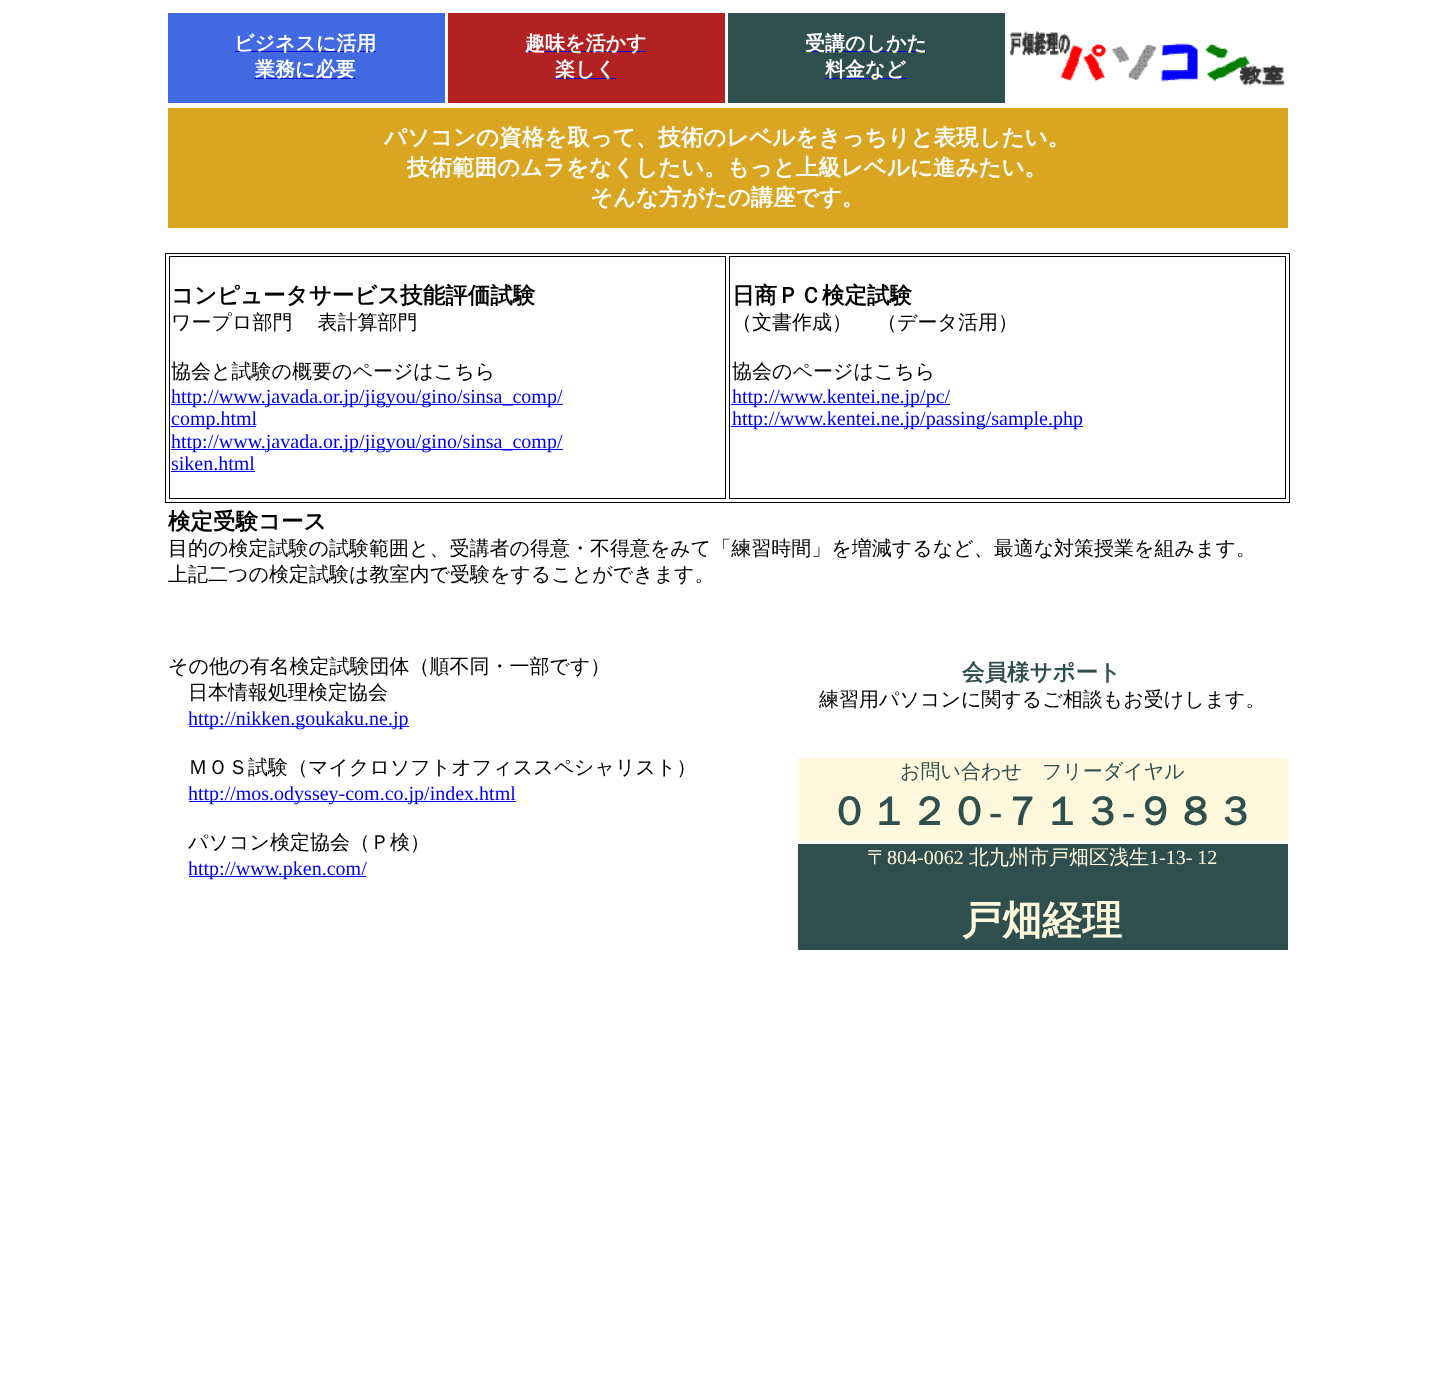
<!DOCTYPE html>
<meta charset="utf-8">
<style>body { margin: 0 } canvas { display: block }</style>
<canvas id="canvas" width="1453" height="1394"></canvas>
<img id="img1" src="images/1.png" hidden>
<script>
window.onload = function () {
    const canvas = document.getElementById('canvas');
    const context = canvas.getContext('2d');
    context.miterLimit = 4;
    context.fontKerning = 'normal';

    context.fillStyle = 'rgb(255, 255, 255)';
    context.fillRect(0, 0, 1453, 1394);
    context.fillStyle = 'rgb(65, 105, 225)';
    context.fillRect(168, 13, 277, 90);
    context.fillStyle = 'rgb(0, 0, 238)';
    context.fillRect(235, 51, 141, 1);
    context.fillRect(255, 78, 101, 1);
    context.fillStyle = 'rgb(178, 34, 34)';
    context.fillRect(448, 13, 277, 90);
    context.fillStyle = 'rgb(0, 0, 238)';
    context.fillRect(525, 51, 121, 1);
    context.fillRect(555, 78, 61, 1);
    context.fillStyle = 'rgb(47, 79, 79)';
    context.fillRect(728, 13, 277, 90);
    context.fillStyle = 'rgb(0, 0, 238)';
    context.fillRect(805, 51, 121, 1);
    context.fillRect(825, 78, 81, 1);
    context.drawImage(document.getElementById('img1'), 1010, 31, 275, 55);
    context.fillStyle = 'rgb(218, 165, 32)';
    context.fillRect(168, 108, 1120, 120);
    context.strokeStyle = 'rgb(0, 0, 0)';
    context.strokeRect(165.5, 253.5, 1124, 249);
    context.strokeRect(169.5, 256.5, 556, 242);
    context.fillStyle = 'rgb(0, 0, 238)';
    context.fillRect(171, 404, 392, 1);
    context.fillRect(171, 426, 85, 1);
    context.fillRect(171, 449, 392, 1);
    context.fillRect(171, 471, 84, 1);
    context.strokeRect(729.5, 256.5, 556, 242);
    context.fillRect(731, 404, 219, 1);
    context.fillRect(731, 426, 352, 1);
    context.fillRect(189, 726, 220, 1);
    context.fillRect(189, 801, 327, 1);
    context.fillRect(189, 876, 177, 1);
    context.fillStyle = 'rgb(255, 248, 220)';
    context.fillRect(798, 758, 490, 83);
    context.fillStyle = 'rgb(47, 79, 79)';
    context.fillRect(798, 844, 490, 106);
    context.font = 'bold 20px WenQuanYi Zen Hei';
    context.fillStyle = 'rgb(255, 255, 255)';
    context.fillText('ビジネスに活用', 234, 50);
    context.fillText('業務に必要', 255, 76);
    context.fillText('趣味を活かす', 525, 50);
    context.fillText('楽しく', 555, 76);
    context.fillText('受講のしかた', 805, 50);
    context.fillText('料金など', 825, 76);
    context.font = 'bold 22.5px WenQuanYi Zen Hei';
    context.fillText('パソコンの資格を取って、技術のレベルをきっちりと表現したい。', 384, 145);
    context.fillText('技術範囲のムラをなくしたい。もっと上級レベルに進みたい。', 407, 175);
    context.fillText('そんな方がたの講座です。', 590, 205);
    context.fillStyle = 'rgb(0, 0, 0)';
    context.fillText('コンピュータサービス技能評価試験', 171, 303);
    context.wordSpacing = '-1px';
    context.font = '500 20px WenQuanYi Zen Hei';
    context.fillText('ワープロ部門　 表計算部門', 171, 329);
    context.wordSpacing = '0px';
    context.fillText('協会と試験の概要のページはこちら', 171, 378);
    context.font = '20px Liberation Serif';
    context.fillStyle = 'rgb(0, 0, 238)';
    context.fillText('http://www.javada.or.jp/jigyou/gino/sinsa_comp/', 171, 403);
    context.fillText('comp.html', 171, 425);
    context.fillText('http://www.javada.or.jp/jigyou/gino/sinsa_comp/', 171, 448);
    context.fillText('siken.html', 171, 470);
    context.font = 'bold 22.5px WenQuanYi Zen Hei';
    context.fillStyle = 'rgb(0, 0, 0)';
    context.fillText('日商ＰＣ検定試験', 732, 303);
    context.wordSpacing = '-1px';
    context.font = '500 20px WenQuanYi Zen Hei';
    context.fillText('（文書作成）　 （データ活用）', 732, 329);
    context.wordSpacing = '0px';
    context.fillText('協会のページはこちら', 732, 378);
    context.font = '20px Liberation Serif';
    context.fillStyle = 'rgb(0, 0, 238)';
    context.fillText('http://www.kentei.ne.jp/pc/', 732, 403);
    context.fillText('http://www.kentei.ne.jp/passing/sample.php', 732, 425);
    context.font = 'bold 22.5px WenQuanYi Zen Hei';
    context.fillStyle = 'rgb(0, 0, 0)';
    context.fillText('検定受験コース', 168, 529);
    context.font = '500 20px WenQuanYi Zen Hei';
    context.fillText('目的の検定試験の試験範囲と、受講者の得意・不得意をみて「練習時間」を増減するなど、最適な対策授業を組みます。', 168, 555);
    context.fillText('上記二つの検定試験は教室内で受験をすることができます。', 168, 581);
    context.fillText('その他の有名検定試験団体（順不同・一部です）', 168, 673);
    context.fillText('日本情報処理検定協会', 188, 699);
    context.font = '20px Liberation Serif';
    context.fillStyle = 'rgb(0, 0, 238)';
    context.fillText('http://nikken.goukaku.ne.jp', 188, 725);
    context.font = '500 20px WenQuanYi Zen Hei';
    context.fillStyle = 'rgb(0, 0, 0)';
    context.fillText('ＭＯＳ試験（マイクロソフトオフィススペシャリスト）', 188, 774);
    context.font = '20px Liberation Serif';
    context.fillStyle = 'rgb(0, 0, 238)';
    context.fillText('http://mos.odyssey-com.co.jp/index.html', 188, 800);
    context.font = '500 20px WenQuanYi Zen Hei';
    context.fillStyle = 'rgb(0, 0, 0)';
    context.fillText('パソコン検定協会（Ｐ検）', 188, 849);
    context.font = '20px Liberation Serif';
    context.fillStyle = 'rgb(0, 0, 238)';
    context.fillText('http://www.pken.com/', 188, 875);
    context.font = 'bold 22.5px WenQuanYi Zen Hei';
    context.fillStyle = 'rgb(47, 79, 79)';
    context.fillText('会員様サポート', 962, 680);
    context.font = '500 20px WenQuanYi Zen Hei';
    context.fillStyle = 'rgb(0, 0, 0)';
    context.fillText('練習用パソコンに関するご相談もお受けします。', 819, 706);
    context.fillStyle = 'rgb(47, 79, 79)';
    context.fillText('お問い合わせ　フリーダイヤル', 900, 778);
    context.font = 'bold 40px WenQuanYi Zen Hei';
    context.fillText('０１２０', 829, 825);
    context.font = 'bold 40px Liberation Serif';
    context.fillText('-', 989, 825);
    context.font = 'bold 40px WenQuanYi Zen Hei';
    context.fillText('７１３', 1002, 825);
    context.font = 'bold 40px Liberation Serif';
    context.fillText('-', 1122, 825);
    context.font = 'bold 40px WenQuanYi Zen Hei';
    context.fillText('９８３', 1135, 825);
    context.font = '500 20px WenQuanYi Zen Hei';
    context.fillStyle = 'rgb(255, 248, 220)';
    context.fillText('〒', 867, 864);
    context.font = '20px Liberation Serif';
    context.fillText('804-0062', 887, 864);
    context.font = '500 20px WenQuanYi Zen Hei';
    context.fillText('北九州市戸畑区浅生', 969, 864);
    context.font = '20px Liberation Serif';
    context.fillText('1-13- 12', 1149, 864);
    context.font = 'bold 40px WenQuanYi Zen Hei';
    context.fillText('戸畑経理', 962, 934);
};
</script>
